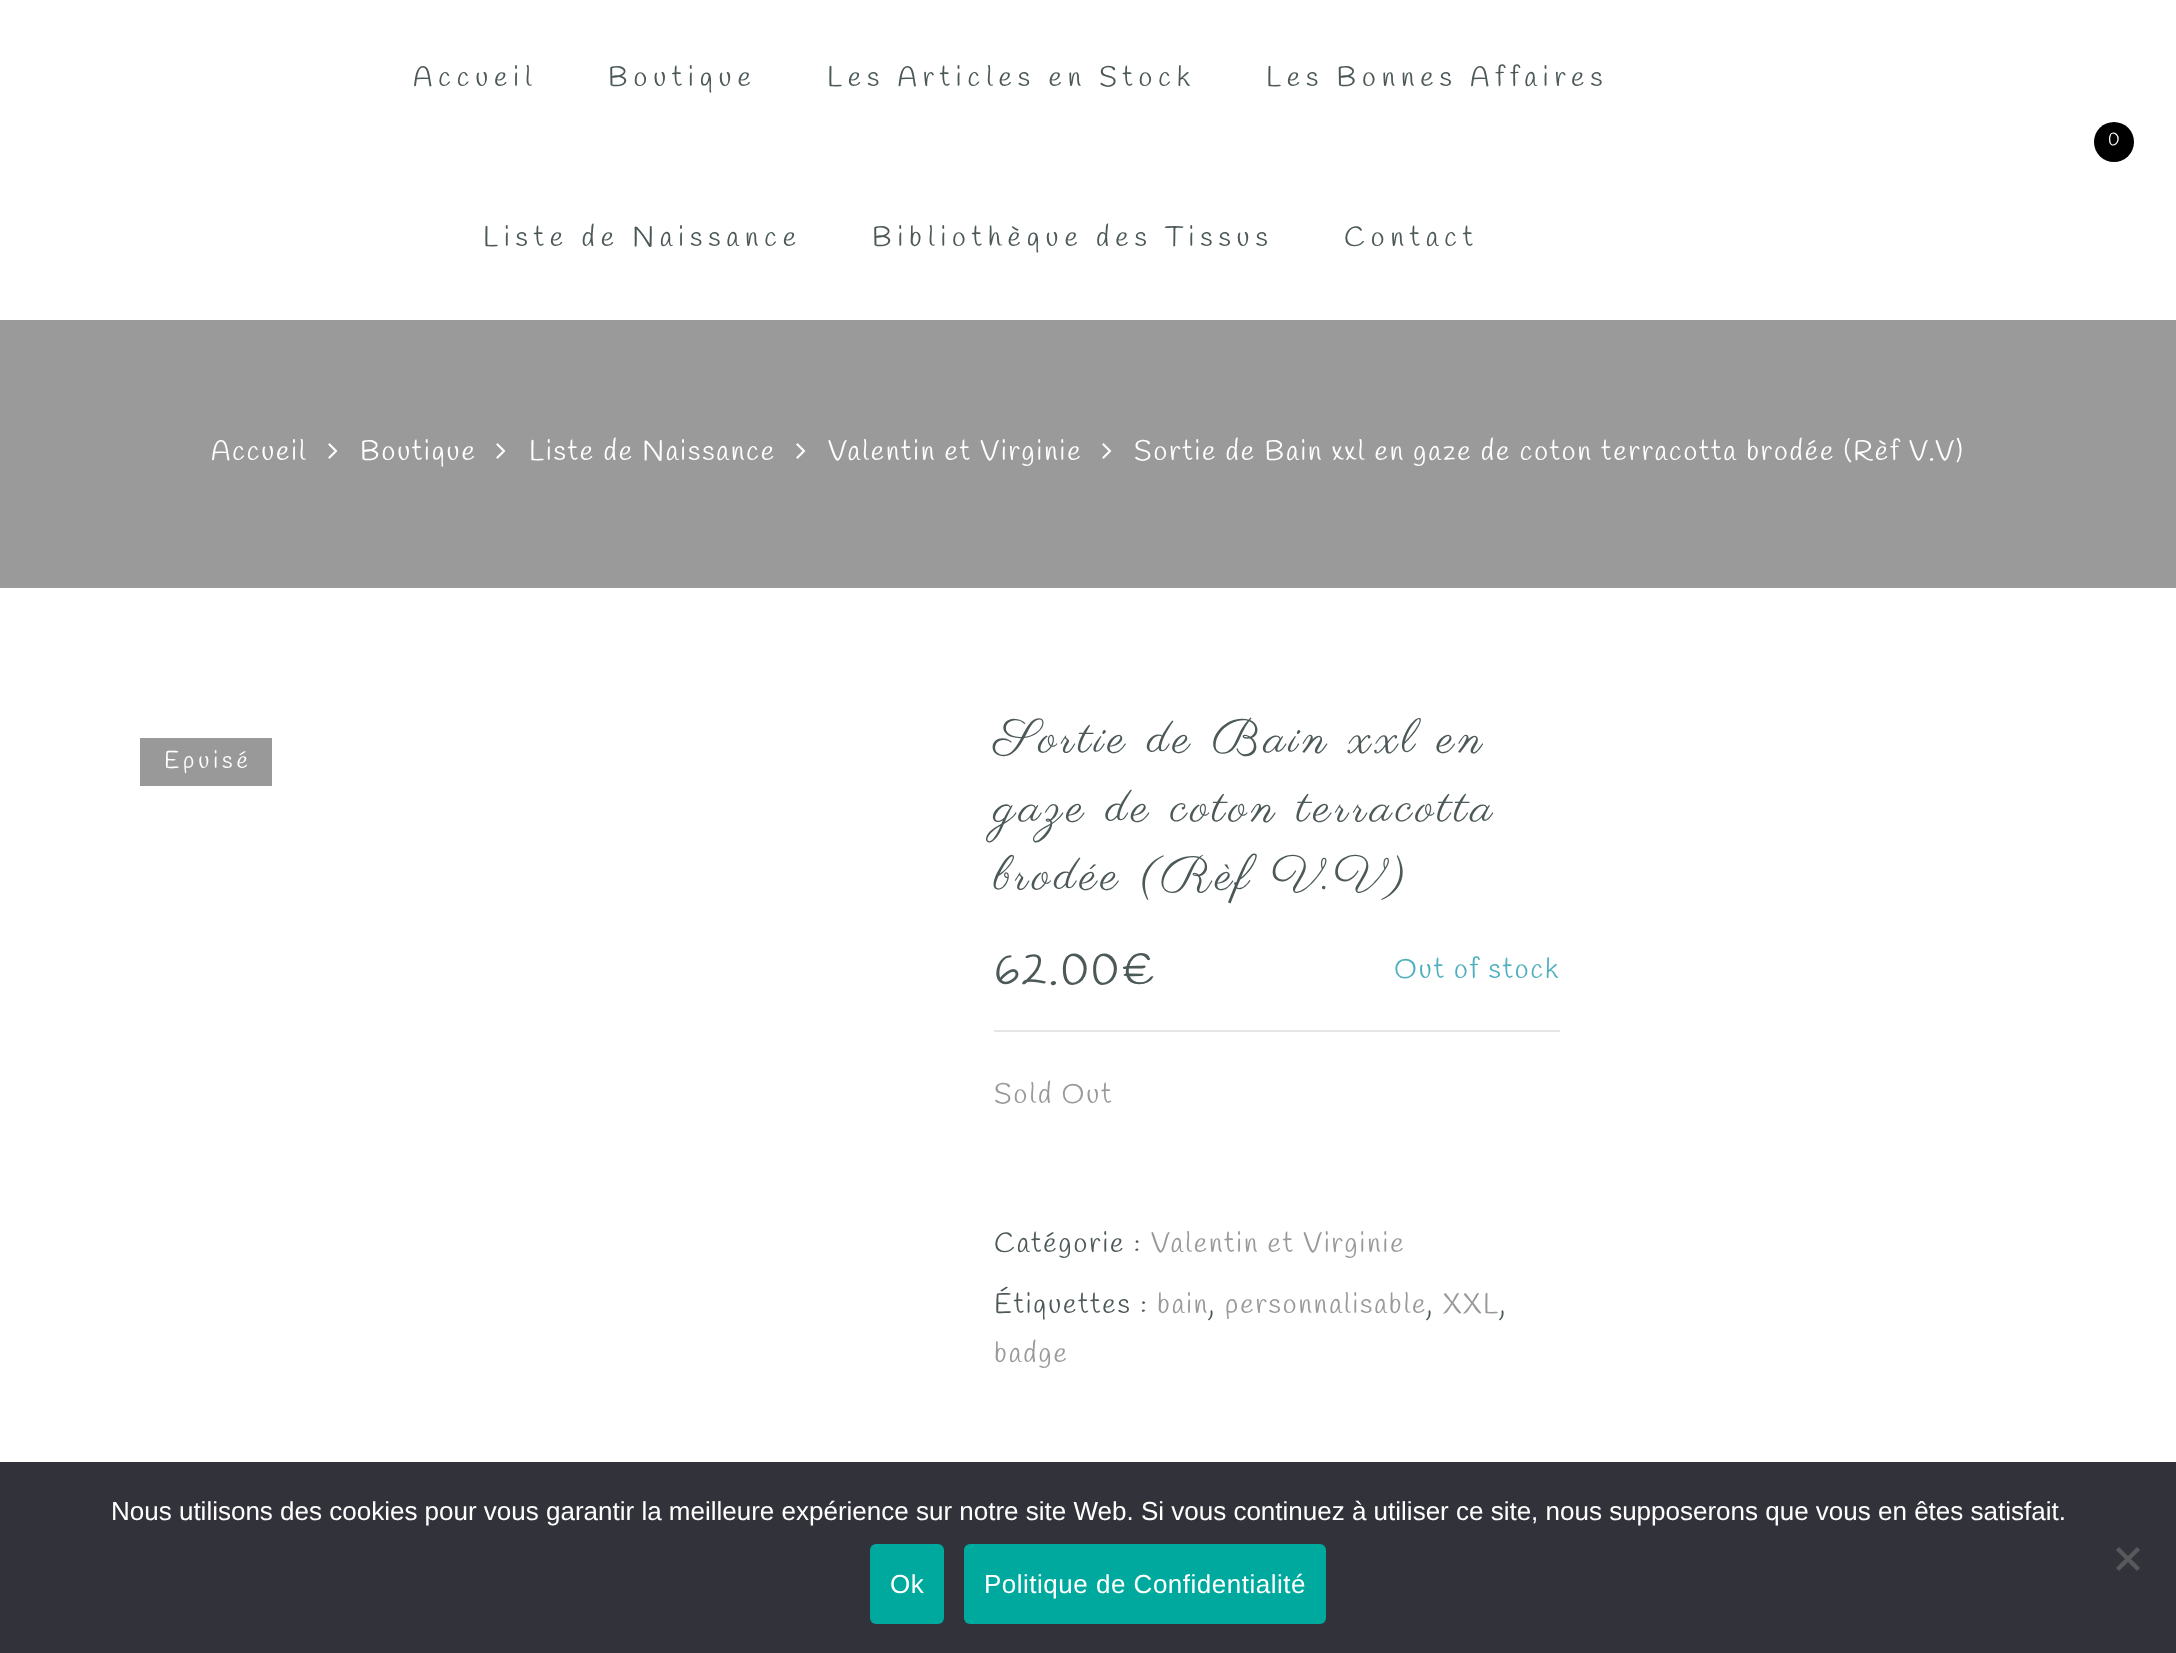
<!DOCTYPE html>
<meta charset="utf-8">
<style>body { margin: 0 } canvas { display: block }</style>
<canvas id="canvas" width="2176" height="1653"></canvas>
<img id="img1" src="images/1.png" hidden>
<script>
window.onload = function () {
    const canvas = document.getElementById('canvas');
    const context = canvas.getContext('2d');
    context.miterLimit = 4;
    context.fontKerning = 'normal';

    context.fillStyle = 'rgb(255, 255, 255)';
    context.fillRect(0, 0, 2176, 1653);
    context.fillStyle = 'rgb(0, 0, 0)';
    context.beginPath();
    context.arc(2114, 142, 20, 0, 2 * Math.PI);
    context.fill();
    context.fillStyle = 'rgb(154, 154, 154)';
    context.fillRect(0, 320, 2176, 268);
    context.drawImage(document.getElementById('img1'), 328, 443, 10, 16);
    context.drawImage(document.getElementById('img1'), 496, 443, 10, 16);
    context.drawImage(document.getElementById('img1'), 796, 443, 10, 16);
    context.drawImage(document.getElementById('img1'), 1102, 443, 10, 16);
    context.fillStyle = 'rgb(153, 153, 153)';
    context.fillRect(140, 738, 132, 48);
    context.fillStyle = 'rgb(229, 229, 229)';
    context.fillRect(994, 1030, 566, 2);
    context.fillStyle = 'rgb(50, 50, 58)';
    context.fillRect(0, 1462, 2176, 191);
    context.fillStyle = 'rgb(89, 89, 93)';
    context.beginPath();
    context.moveTo(2137, 1547);
    context.lineTo(2140, 1550);
    context.lineTo(2119, 1571);
    context.lineTo(2116, 1568);
    context.closePath();
    context.fill();
    context.beginPath();
    context.moveTo(2116, 1550);
    context.lineTo(2119, 1547);
    context.lineTo(2140, 1568);
    context.lineTo(2137, 1571);
    context.closePath();
    context.fill();
    context.fillStyle = 'rgb(0, 169, 157)';
    context.beginPath();
    context.roundRect(870, 1544, 74, 80, 6);
    context.fill();
    context.beginPath();
    context.roundRect(964, 1544, 362, 80, 6);
    context.fill();
    context.letterSpacing = '6px';
    context.font = '28px Handlee';
    context.fillStyle = 'rgb(77, 89, 89)';
    context.fillText('Accueil', 413, 86);
    context.fillText('Boutique', 608, 86);
    context.fillText('Les Articles en Stock', 827, 86);
    context.fillText('Les Bonnes Affaires', 1266, 86);
    context.fillText('Liste de Naissance', 483, 246);
    context.fillText('Bibliothèque des Tissus', 872, 246);
    context.fillText('Contact', 1344, 246);
    context.letterSpacing = '2px';
    context.font = '18px Handlee';
    context.fillStyle = 'rgb(255, 255, 255)';
    context.fillText('0', 2108, 145);
    context.font = '28px Handlee';
    context.fillText('Accueil', 211, 460);
    context.fillText('Boutique', 360, 460);
    context.fillText('Liste de Naissance', 529, 460);
    context.fillText('Valentin et Virginie', 828, 460);
    context.fillText('Sortie de Bain xxl en gaze de coton terracotta brodée (Rèf V.V)', 1134, 460);
    context.letterSpacing = '4px';
    context.font = '24px Handlee';
    context.fillText('Epuisé', 164, 768);
    context.font = '48px Parisienne';
    context.fillStyle = 'rgb(77, 89, 89)';
    context.fillText('Sortie de Bain xxl en', 994, 752);
    context.fillText('gaze de coton terracotta', 994, 821);
    context.fillText('brodée (Rèf V.V)', 994, 889);
    context.letterSpacing = '2px';
    context.font = '44px Handlee';
    context.fillText('62.00€', 994, 984);
    context.font = '28px Handlee';
    context.fillStyle = 'rgb(78, 176, 190)';
    context.fillText('Out of stock', 1394, 978);
    context.fillStyle = 'rgb(153, 153, 153)';
    context.fillText('Sold Out', 994, 1103);
    context.fillStyle = 'rgb(77, 89, 89)';
    context.fillText('Catégorie :', 994, 1252);
    context.fillStyle = 'rgb(153, 153, 153)';
    context.fillText('Valentin et Virginie', 1151, 1252);
    context.fillStyle = 'rgb(77, 89, 89)';
    context.fillText('Étiquettes :', 994, 1313);
    context.fillStyle = 'rgb(153, 153, 153)';
    context.fillText('bain', 1157, 1313);
    context.fillText('personnalisable', 1225, 1313);
    context.fillText('XXL', 1443, 1313);
    context.fillStyle = 'rgb(77, 89, 89)';
    context.fillText(',', 1209, 1313);
    context.fillText(',', 1427, 1313);
    context.fillText(',', 1500, 1313);
    context.fillStyle = 'rgb(153, 153, 153)';
    context.fillText('badge', 994, 1362);
    context.letterSpacing = '0px';
    context.font = '26px Liberation Sans';
    context.fillStyle = 'rgb(255, 255, 255)';
    context.fillText('Nous utilisons des cookies pour vous garantir la meilleure expérience sur notre site Web. Si vous continuez à utiliser ce site, nous supposerons que vous en êtes satisfait.', 111, 1520);
    context.letterSpacing = '0.5px';
    context.fillText('Ok', 890, 1593);
    context.fillText('Politique de Confidentialité', 984, 1593);
};
</script>
